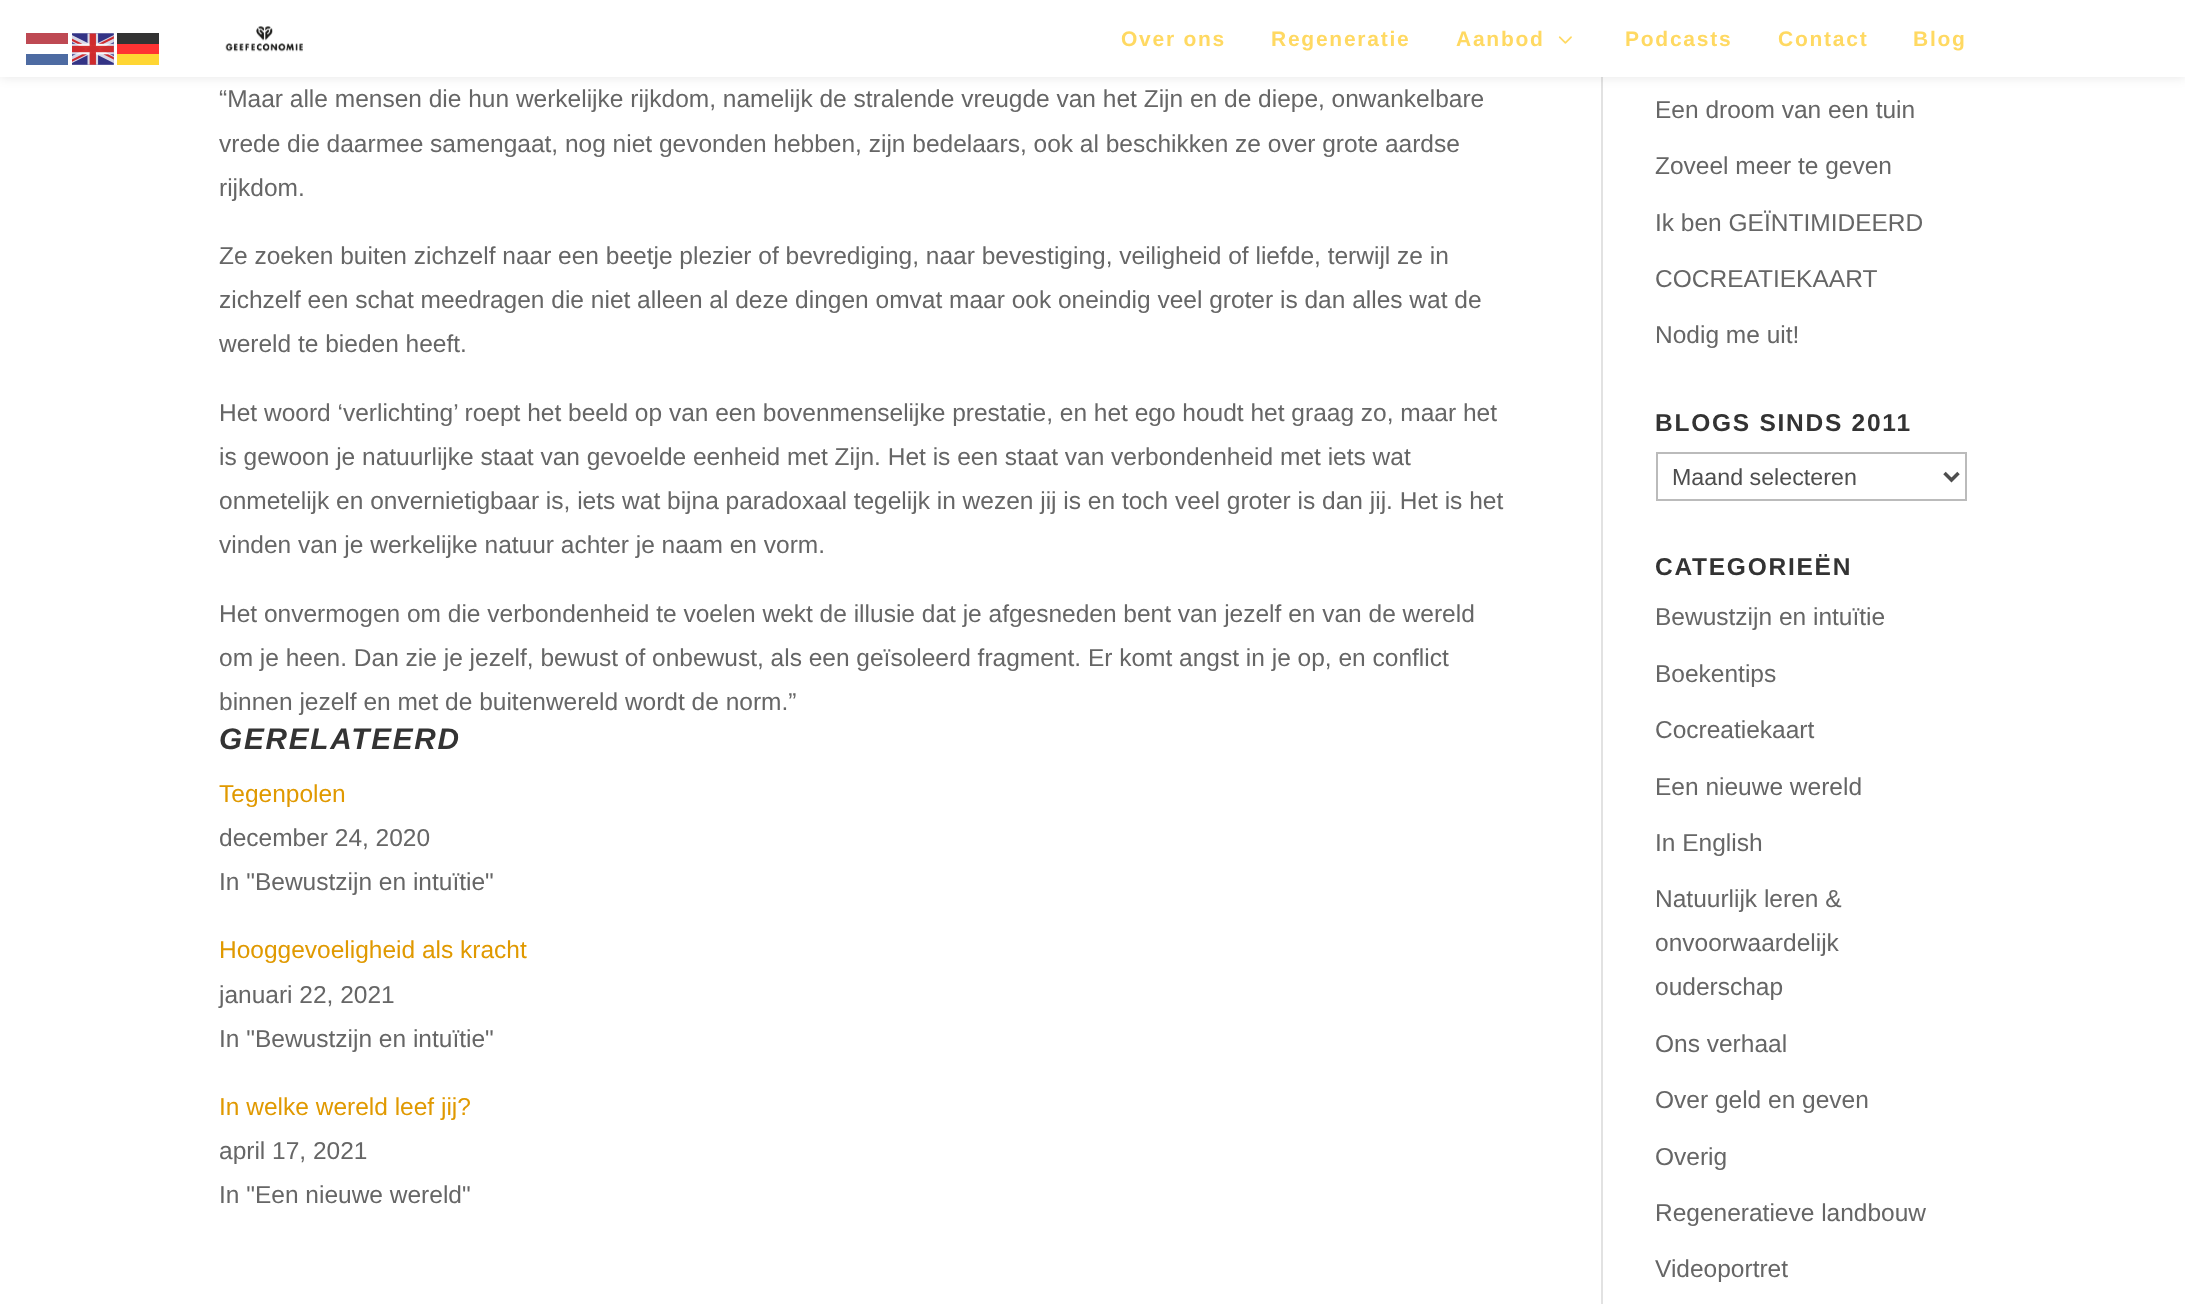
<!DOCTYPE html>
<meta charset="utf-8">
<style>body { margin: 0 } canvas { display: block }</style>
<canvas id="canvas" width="2185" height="1304"></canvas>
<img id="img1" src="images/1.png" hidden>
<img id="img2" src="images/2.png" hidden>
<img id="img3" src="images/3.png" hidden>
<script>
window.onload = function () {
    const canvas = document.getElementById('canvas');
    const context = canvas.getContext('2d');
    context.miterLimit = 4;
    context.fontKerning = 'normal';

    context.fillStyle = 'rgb(255, 255, 255)';
    context.fillRect(0, 0, 2185, 1304);
    context.fillStyle = 'rgb(226, 226, 226)';
    context.fillRect(1601, 77, 2, 1227);
    context.fillStyle = 'rgba(0, 0, 0, 0.1)';
    context.filter = 'blur(6px)';
    context.beginPath();
    context.rect(0, 0, 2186, 77);
    context.fill();
    context.filter = 'none';
    context.fillStyle = 'rgb(255, 255, 255)';
    context.fillRect(0, 0, 2185, 77);
    context.fillStyle = 'rgb(190, 73, 83)';
    context.fillRect(26, 33, 42, 11);
    context.drawImage(document.getElementById('img1'), 72, 33, 42, 32);
    context.fillStyle = 'rgb(51, 51, 51)';
    context.fillRect(117, 33, 42, 11);
    context.fillStyle = 'rgb(255, 51, 51)';
    context.fillRect(117, 44, 42, 10);
    context.fillStyle = 'rgb(77, 107, 162)';
    context.fillRect(26, 54, 42, 11);
    context.fillStyle = 'rgb(255, 214, 51)';
    context.fillRect(117, 54, 42, 11);
    context.drawImage(document.getElementById('img2'), 225, 26, 78, 26);
    context.drawImage(document.getElementById('img3'), 1558, 36, 14, 8);
    context.strokeStyle = 'rgb(187, 187, 187)';
    context.lineWidth = 2;
    context.strokeRect(1657, 453, 309, 47);
    context.beginPath();
    context.moveTo(1944.5, 473);
    context.lineTo(1951.5, 480);
    context.lineTo(1958.5, 473);
    context.strokeStyle = 'rgb(78, 78, 78)';
    context.lineWidth = 3.5;
    context.stroke();
    context.letterSpacing = '1.75px';
    context.font = 'bold 21px Liberation Sans';
    context.fillStyle = 'rgb(255, 217, 98)';
    context.fillText('Over ons', 1121, 46);
    context.fillText('Regeneratie', 1271, 46);
    context.fillText('Aanbod', 1456, 46);
    context.fillText('Podcasts', 1625, 46);
    context.fillText('Contact', 1778, 46);
    context.fillText('Blog', 1913, 46);
    context.letterSpacing = '0px';
    context.font = '24.5px Liberation Sans';
    context.fillStyle = 'rgb(102, 102, 102)';
    context.fillText('“Maar alle mensen die hun werkelijke rijkdom, namelijk de stralende vreugde van het Zijn en de diepe, onwankelbare', 219, 107);
    context.fillText('vrede die daarmee samengaat, nog niet gevonden hebben, zijn bedelaars, ook al beschikken ze over grote aardse', 219, 152);
    context.fillText('rijkdom.', 219, 196);
    context.fillText('Ze zoeken buiten zichzelf naar een beetje plezier of bevrediging, naar bevestiging, veiligheid of liefde, terwijl ze in', 219, 264);
    context.fillText('zichzelf een schat meedragen die niet alleen al deze dingen omvat maar ook oneindig veel groter is dan alles wat de', 219, 308);
    context.fillText('wereld te bieden heeft.', 219, 352);
    context.fillText('Het woord ‘verlichting’ roept het beeld op van een bovenmenselijke prestatie, en het ego houdt het graag zo, maar het', 219, 421);
    context.fillText('is gewoon je natuurlijke staat van gevoelde eenheid met Zijn. Het is een staat van verbondenheid met iets wat', 219, 465);
    context.fillText('onmetelijk en onvernietigbaar is, iets wat bijna paradoxaal tegelijk in wezen jij is en toch veel groter is dan jij. Het is het', 219, 509);
    context.fillText('vinden van je werkelijke natuur achter je naam en vorm.', 219, 553);
    context.fillText('Het onvermogen om die verbondenheid te voelen wekt de illusie dat je afgesneden bent van jezelf en van de wereld', 219, 622);
    context.fillText('om je heen. Dan zie je jezelf, bewust of onbewust, als een geïsoleerd fragment. Er komt angst in je op, en conflict', 219, 666);
    context.fillText('binnen jezelf en met de buitenwereld wordt de norm.”', 219, 710);
    context.letterSpacing = '1.75px';
    context.font = 'italic bold 29.75px Liberation Sans';
    context.fillStyle = 'rgb(51, 51, 51)';
    context.fillText('GERELATEERD', 219, 749);
    context.letterSpacing = '0px';
    context.font = '24.5px Liberation Sans';
    context.fillStyle = 'rgb(224, 153, 0)';
    context.fillText('Tegenpolen', 219, 802);
    context.fillStyle = 'rgb(102, 102, 102)';
    context.fillText('december 24, 2020', 219, 846);
    context.fillText('In "Bewustzijn en intuïtie"', 219, 890);
    context.fillStyle = 'rgb(224, 153, 0)';
    context.fillText('Hooggevoeligheid als kracht', 219, 958);
    context.fillStyle = 'rgb(102, 102, 102)';
    context.fillText('januari 22, 2021', 219, 1003);
    context.fillText('In "Bewustzijn en intuïtie"', 219, 1047);
    context.fillStyle = 'rgb(224, 153, 0)';
    context.fillText('In welke wereld leef jij?', 219, 1115);
    context.fillStyle = 'rgb(102, 102, 102)';
    context.fillText('april 17, 2021', 219, 1159);
    context.fillText('In "Een nieuwe wereld"', 219, 1203);
    context.fillText('Een droom van een tuin', 1655, 118);
    context.fillText('Zoveel meer te geven', 1655, 174);
    context.fillText('Ik ben GEÏNTIMIDEERD', 1655, 231);
    context.fillText('COCREATIEKAART', 1655, 287);
    context.fillText('Nodig me uit!', 1655, 343);
    context.letterSpacing = '1.75px';
    context.font = 'bold 24.5px Liberation Sans';
    context.fillStyle = 'rgb(51, 51, 51)';
    context.fillText('BLOGS SINDS 2011', 1655, 431);
    context.letterSpacing = '0px';
    context.font = '23.25px Liberation Sans';
    context.fillStyle = 'rgb(78, 78, 78)';
    context.fillText('Maand selecteren', 1672, 485);
    context.letterSpacing = '1.75px';
    context.font = 'bold 24.5px Liberation Sans';
    context.fillStyle = 'rgb(51, 51, 51)';
    context.fillText('CATEGORIEËN', 1655, 575);
    context.letterSpacing = '0px';
    context.font = '24.5px Liberation Sans';
    context.fillStyle = 'rgb(102, 102, 102)';
    context.fillText('Bewustzijn en intuïtie', 1655, 625);
    context.fillText('Boekentips', 1655, 682);
    context.fillText('Cocreatiekaart', 1655, 738);
    context.fillText('Een nieuwe wereld', 1655, 795);
    context.fillText('In English', 1655, 851);
    context.fillText('Natuurlijk leren &', 1655, 907);
    context.fillText('onvoorwaardelijk', 1655, 951);
    context.fillText('ouderschap', 1655, 995);
    context.fillText('Ons verhaal', 1655, 1052);
    context.fillText('Over geld en geven', 1655, 1108);
    context.fillText('Overig', 1655, 1165);
    context.fillText('Regeneratieve landbouw', 1655, 1221);
    context.fillText('Videoportret', 1655, 1277);
};
</script>
